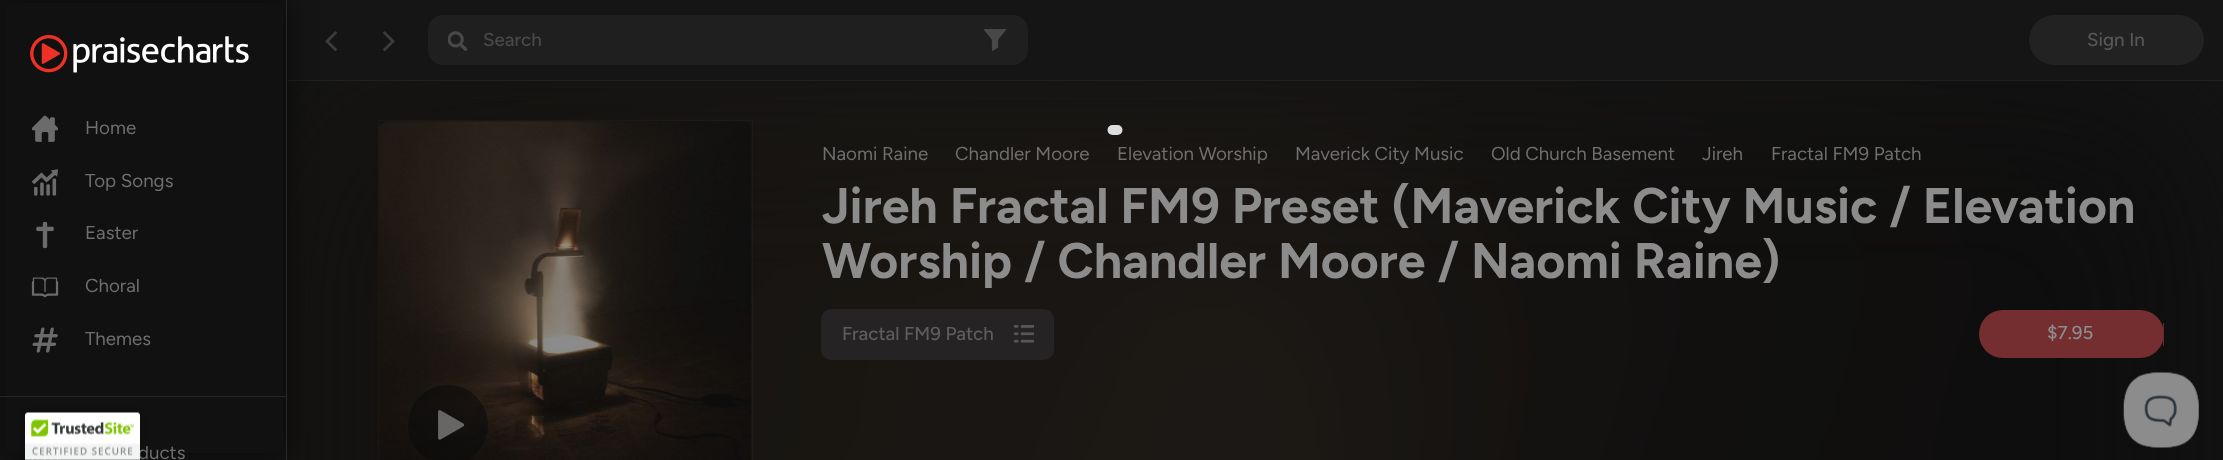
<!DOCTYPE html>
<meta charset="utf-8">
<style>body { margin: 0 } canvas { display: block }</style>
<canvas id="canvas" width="2223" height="460"></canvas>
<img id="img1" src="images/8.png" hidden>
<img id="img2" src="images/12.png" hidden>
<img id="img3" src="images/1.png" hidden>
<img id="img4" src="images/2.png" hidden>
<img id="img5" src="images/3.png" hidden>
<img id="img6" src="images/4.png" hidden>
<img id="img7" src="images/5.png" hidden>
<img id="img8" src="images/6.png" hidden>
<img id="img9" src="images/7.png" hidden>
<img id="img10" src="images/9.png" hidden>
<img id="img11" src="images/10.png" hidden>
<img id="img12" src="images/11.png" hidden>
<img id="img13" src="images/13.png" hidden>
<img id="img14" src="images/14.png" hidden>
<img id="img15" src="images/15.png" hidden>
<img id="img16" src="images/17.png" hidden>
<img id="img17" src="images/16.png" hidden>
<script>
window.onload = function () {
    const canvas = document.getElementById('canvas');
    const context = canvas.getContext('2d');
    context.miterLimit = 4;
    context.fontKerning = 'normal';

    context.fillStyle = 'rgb(21, 21, 21)';
    context.fillRect(0, 0, 2223, 460);
    context.fillStyle = 'rgb(32, 32, 32)';
    context.fillRect(288, 80, 1935, 1);
    context.drawImage(document.getElementById('img1'), 325, 31, 12, 20);
    context.drawImage(document.getElementById('img2'), 288, 81, 1935, 379);
    context.fillStyle = 'rgba(0, 0, 0, 0.5)';
    context.filter = 'blur(14px)';
    context.beginPath();
    context.rect(0, -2, 288, 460);
    context.fill();
    context.filter = 'none';
    context.fillStyle = 'rgb(17, 17, 17)';
    context.fillRect(5, 3, 278, 450);
    context.fillStyle = 'rgb(39, 39, 39)';
    context.fillRect(286, 0, 1, 460);
    context.drawImage(document.getElementById('img3'), 30, 35, 219, 38);
    context.fillRect(0, 396, 286, 1);
    context.drawImage(document.getElementById('img4'), 32, 115, 27, 27);
    context.drawImage(document.getElementById('img5'), 32, 169, 26, 27);
    context.drawImage(document.getElementById('img6'), 36, 221, 18, 28);
    context.drawImage(document.getElementById('img7'), 31, 277, 28, 21);
    context.drawImage(document.getElementById('img8'), 32, 327, 26, 26);
    context.drawImage(document.getElementById('img9'), 31, 459, 28, 1);
    context.drawImage(document.getElementById('img10'), 383, 31, 12, 20);
    context.fillStyle = 'rgb(31, 31, 31)';
    context.beginPath();
    context.roundRect(428, 15, 600, 50, 15);
    context.fill();
    context.drawImage(document.getElementById('img11'), 448, 31, 20, 20);
    context.drawImage(document.getElementById('img12'), 984, 29, 22, 22);
    context.fillStyle = 'rgb(34, 34, 35)';
    context.beginPath();
    context.roundRect(2029, 15, 175, 50, 25);
    context.fill();
    context.strokeStyle = 'rgba(140, 140, 140, 0.06)';
    context.strokeRect(378.5, 120.5, 374, 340);
    context.drawImage(document.getElementById('img13'), 378, 121, 373, 339);
    context.fillStyle = 'rgba(13, 13, 13, 0.65)';
    context.beginPath();
    context.arc(448, 425, 40, 0, 2 * Math.PI);
    context.fill();
    context.drawImage(document.getElementById('img14'), 438, 410, 27, 30);
    context.fillStyle = 'rgb(37, 35, 35)';
    context.beginPath();
    context.roundRect(821, 309, 233, 51, 10);
    context.fill();
    context.drawImage(document.getElementById('img15'), 1014, 325, 20, 18);
    context.fillStyle = 'rgb(116, 46, 47)';
    context.beginPath();
    context.roundRect(1979, 310, 185, 48, 24);
    context.fill();
    context.fillStyle = 'rgb(101, 39, 40)';
    context.fillRect(2163, 323, 1, 23);
    context.beginPath();
    context.moveTo(1112.5, 130);
    context.lineTo(1117.5, 130);
    context.strokeStyle = 'rgb(221, 221, 221)';
    context.lineWidth = 10;
    context.lineCap = 'round';
    context.stroke();
    context.fillStyle = 'rgba(0, 0, 0, 0.2)';
    context.filter = 'blur(3px)';
    context.beginPath();
    context.roundRect(25, 413, 115, 47, 2.5);
    context.fill();
    context.filter = 'none';
    context.drawImage(document.getElementById('img16'), 2123, 372, 76, 76);
    context.font = '18.75px Figtree';
    context.fillStyle = 'rgb(112, 111, 111)';
    context.fillText('Home', 85, 134);
    context.fillText('Top Songs', 85, 187);
    context.fillText('Easter', 85, 239);
    context.fillText('Choral', 85, 292);
    context.fillText('Themes', 85, 345);
    context.fillText('ducts', 138, 459);
    context.font = '500 18.75px Figtree';
    context.fillStyle = 'rgb(73, 73, 73)';
    context.fillText('Search', 483, 46);
    context.fillStyle = 'rgb(87, 87, 88)';
    context.fillText('Sign In', 2087, 46);
    context.font = '18.75px Figtree';
    context.fillStyle = 'rgb(112, 111, 111)';
    context.fillText('Naomi Raine', 822, 160);
    context.fillText('Chandler Moore', 955, 160);
    context.fillText('Elevation Worship', 1117, 160);
    context.fillText('Maverick City Music', 1295, 160);
    context.fillText('Old Church Basement', 1491, 160);
    context.fillText('Jireh', 1702, 160);
    context.fillText('Fractal FM9 Patch', 1771, 160);
    context.font = 'bold 50px Figtree';
    context.fillStyle = 'rgb(140, 140, 140)';
    context.fillText('Jireh Fractal FM9 Preset (Maverick City Music / Elevation', 822, 223);
    context.fillText('Worship / Chandler Moore / Naomi Raine)', 822, 278);
    context.font = '500 18.75px Figtree';
    context.fillStyle = 'rgb(95, 94, 94)';
    context.fillText('Fractal FM9 Patch', 842, 340);
    context.fillStyle = 'rgb(140, 140, 140)';
    context.fillText('$7.95', 2047, 339);
    context.drawImage(document.getElementById('img17'), 25, 412, 115, 48);
};
</script>
